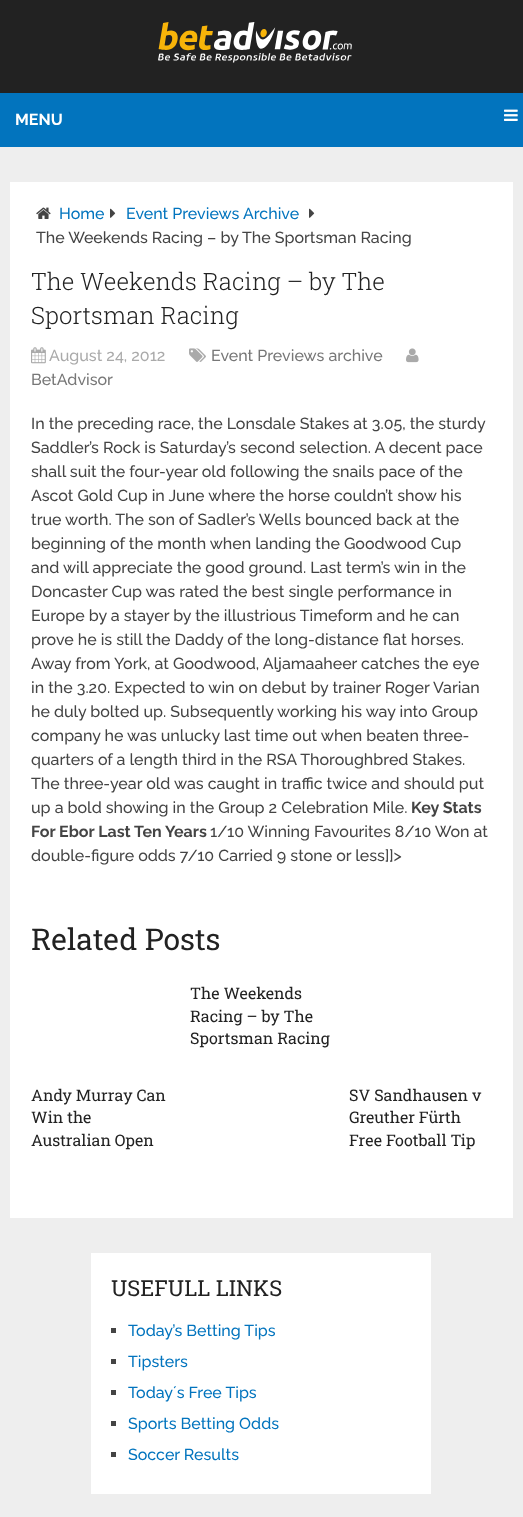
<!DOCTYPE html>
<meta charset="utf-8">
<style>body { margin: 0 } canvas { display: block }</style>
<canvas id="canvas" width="523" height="1517"></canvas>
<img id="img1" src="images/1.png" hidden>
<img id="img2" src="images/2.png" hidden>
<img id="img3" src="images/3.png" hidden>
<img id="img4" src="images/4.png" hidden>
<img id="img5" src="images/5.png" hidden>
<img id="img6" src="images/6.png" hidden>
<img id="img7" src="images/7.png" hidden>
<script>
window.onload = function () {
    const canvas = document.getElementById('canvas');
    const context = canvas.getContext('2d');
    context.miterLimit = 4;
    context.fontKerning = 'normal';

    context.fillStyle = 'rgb(238, 238, 238)';
    context.fillRect(0, 0, 523, 1517);
    context.fillStyle = 'rgb(34, 34, 34)';
    context.fillRect(0, 0, 523, 93);
    context.drawImage(document.getElementById('img1'), 158, 22, 194, 41);
    context.fillStyle = 'rgb(2, 116, 190)';
    context.fillRect(0, 93, 523, 54);
    context.drawImage(document.getElementById('img2'), 504, 109, 14, 12);
    context.fillStyle = 'rgb(255, 255, 255)';
    context.fillRect(10, 182, 503, 1036);
    context.drawImage(document.getElementById('img3'), 36, 207, 15, 12);
    context.drawImage(document.getElementById('img4'), 110, 208, 6, 10);
    context.drawImage(document.getElementById('img4'), 309, 208, 6, 10);
    context.drawImage(document.getElementById('img5'), 31, 347, 15, 17);
    context.drawImage(document.getElementById('img6'), 189, 348, 17, 14);
    context.drawImage(document.getElementById('img7'), 406, 348, 13, 15);
    context.fillRect(91, 1253, 340, 241);
    context.fillStyle = 'rgb(68, 68, 68)';
    context.fillRect(111, 1328, 5, 5);
    context.fillRect(111, 1359, 5, 5);
    context.fillRect(111, 1390, 5, 5);
    context.fillRect(111, 1421, 5, 5);
    context.fillRect(111, 1452, 5, 5);
    context.font = 'bold 16px Raleway';
    context.fillStyle = 'rgb(255, 255, 255)';
    context.fillText('MENU', 15, 125);
    context.font = '500 16px Raleway';
    context.fillStyle = 'rgb(2, 116, 190)';
    context.fillText('Home', 59, 219);
    context.fillText('Event Previews Archive', 126, 219);
    context.fillStyle = 'rgb(68, 68, 68)';
    context.fillText('The Weekends Racing – by The Sportsman Racing', 36, 243);
    context.font = '300 24px Roboto Slab';
    context.fillStyle = 'rgb(34, 34, 34)';
    context.fillText('The Weekends Racing – by The', 31, 290);
    context.fillText('Sportsman Racing', 31, 324);
    context.font = '500 16px Raleway';
    context.fillStyle = 'rgb(170, 170, 170)';
    context.fillText('August 24, 2012', 49, 361);
    context.fillStyle = 'rgb(119, 119, 119)';
    context.fillText('Event Previews archive', 211, 361);
    context.fillText('BetAdvisor', 31, 385);
    context.fillStyle = 'rgb(68, 68, 68)';
    context.fillText('In the preceding race, the Lonsdale Stakes at 3.05, the sturdy', 31, 429);
    context.fillText('Saddler’s Rock is Saturday’s second selection. A decent pace', 31, 453);
    context.fillText('shall suit the four-year old following the snails pace of the', 31, 477);
    context.fillText('Ascot Gold Cup in June where the horse couldn’t show his', 31, 501);
    context.fillText('true worth. The son of Sadler’s Wells bounced back at the', 31, 525);
    context.fillText('beginning of the month when landing the Goodwood Cup', 31, 549);
    context.fillText('and will appreciate the good ground. Last term’s win in the', 31, 573);
    context.fillText('Doncaster Cup was rated the best single performance in', 31, 597);
    context.fillText('Europe by a stayer by the illustrious Timeform and he can', 31, 621);
    context.fillText('prove he is still the Daddy of the long-distance flat horses.', 31, 645);
    context.fillText('Away from York, at Goodwood, Aljamaaheer catches the eye', 31, 669);
    context.fillText('in the 3.20. Expected to win on debut by trainer Roger Varian', 31, 693);
    context.fillText('he duly bolted up. Subsequently working his way into Group', 31, 717);
    context.fillText('company he was unlucky last time out when beaten three-', 31, 741);
    context.fillText('quarters of a length third in the RSA Thoroughbred Stakes.', 31, 765);
    context.fillText('The three-year old was caught in traffic twice and should put', 31, 789);
    context.fillText('up a bold showing in the Group 2 Celebration Mile.', 31, 813);
    context.font = 'bold 16px Raleway';
    context.fillText('Key Stats', 411, 813);
    context.fillText('For Ebor Last Ten Years', 31, 837);
    context.font = '500 16px Raleway';
    context.fillText('1/10 Winning Favourites 8/10 Won at', 210, 837);
    context.fillText('double-figure odds 7/10 Carried 9 stone or less]]>', 31, 861);
    context.font = '30px Roboto Slab';
    context.fillStyle = 'rgb(34, 34, 34)';
    context.fillText('Related Posts', 31, 950);
    context.font = '16px Roboto Slab';
    context.fillText('The Weekends', 190, 999);
    context.fillText('Racing – by The', 190, 1022);
    context.fillText('Sportsman Racing', 190, 1044);
    context.fillText('Andy Murray Can', 31, 1101);
    context.fillText('Win the', 31, 1123);
    context.fillText('Australian Open', 31, 1146);
    context.fillText('SV Sandhausen v', 349, 1101);
    context.fillText('Greuther Fürth', 349, 1123);
    context.fillText('Free Football Tip', 349, 1146);
    context.font = '22px Roboto Slab';
    context.fillText('USEFULL LINKS', 111, 1296);
    context.font = '500 16px Raleway';
    context.fillStyle = 'rgb(2, 116, 190)';
    context.fillText('Today’s Betting Tips', 128, 1336);
    context.fillText('Tipsters', 128, 1367);
    context.fillText('Todayʼs Free Tips', 128, 1398);
    context.fillText('Sports Betting Odds', 128, 1429);
    context.fillText('Soccer Results', 128, 1460);
};
</script>
